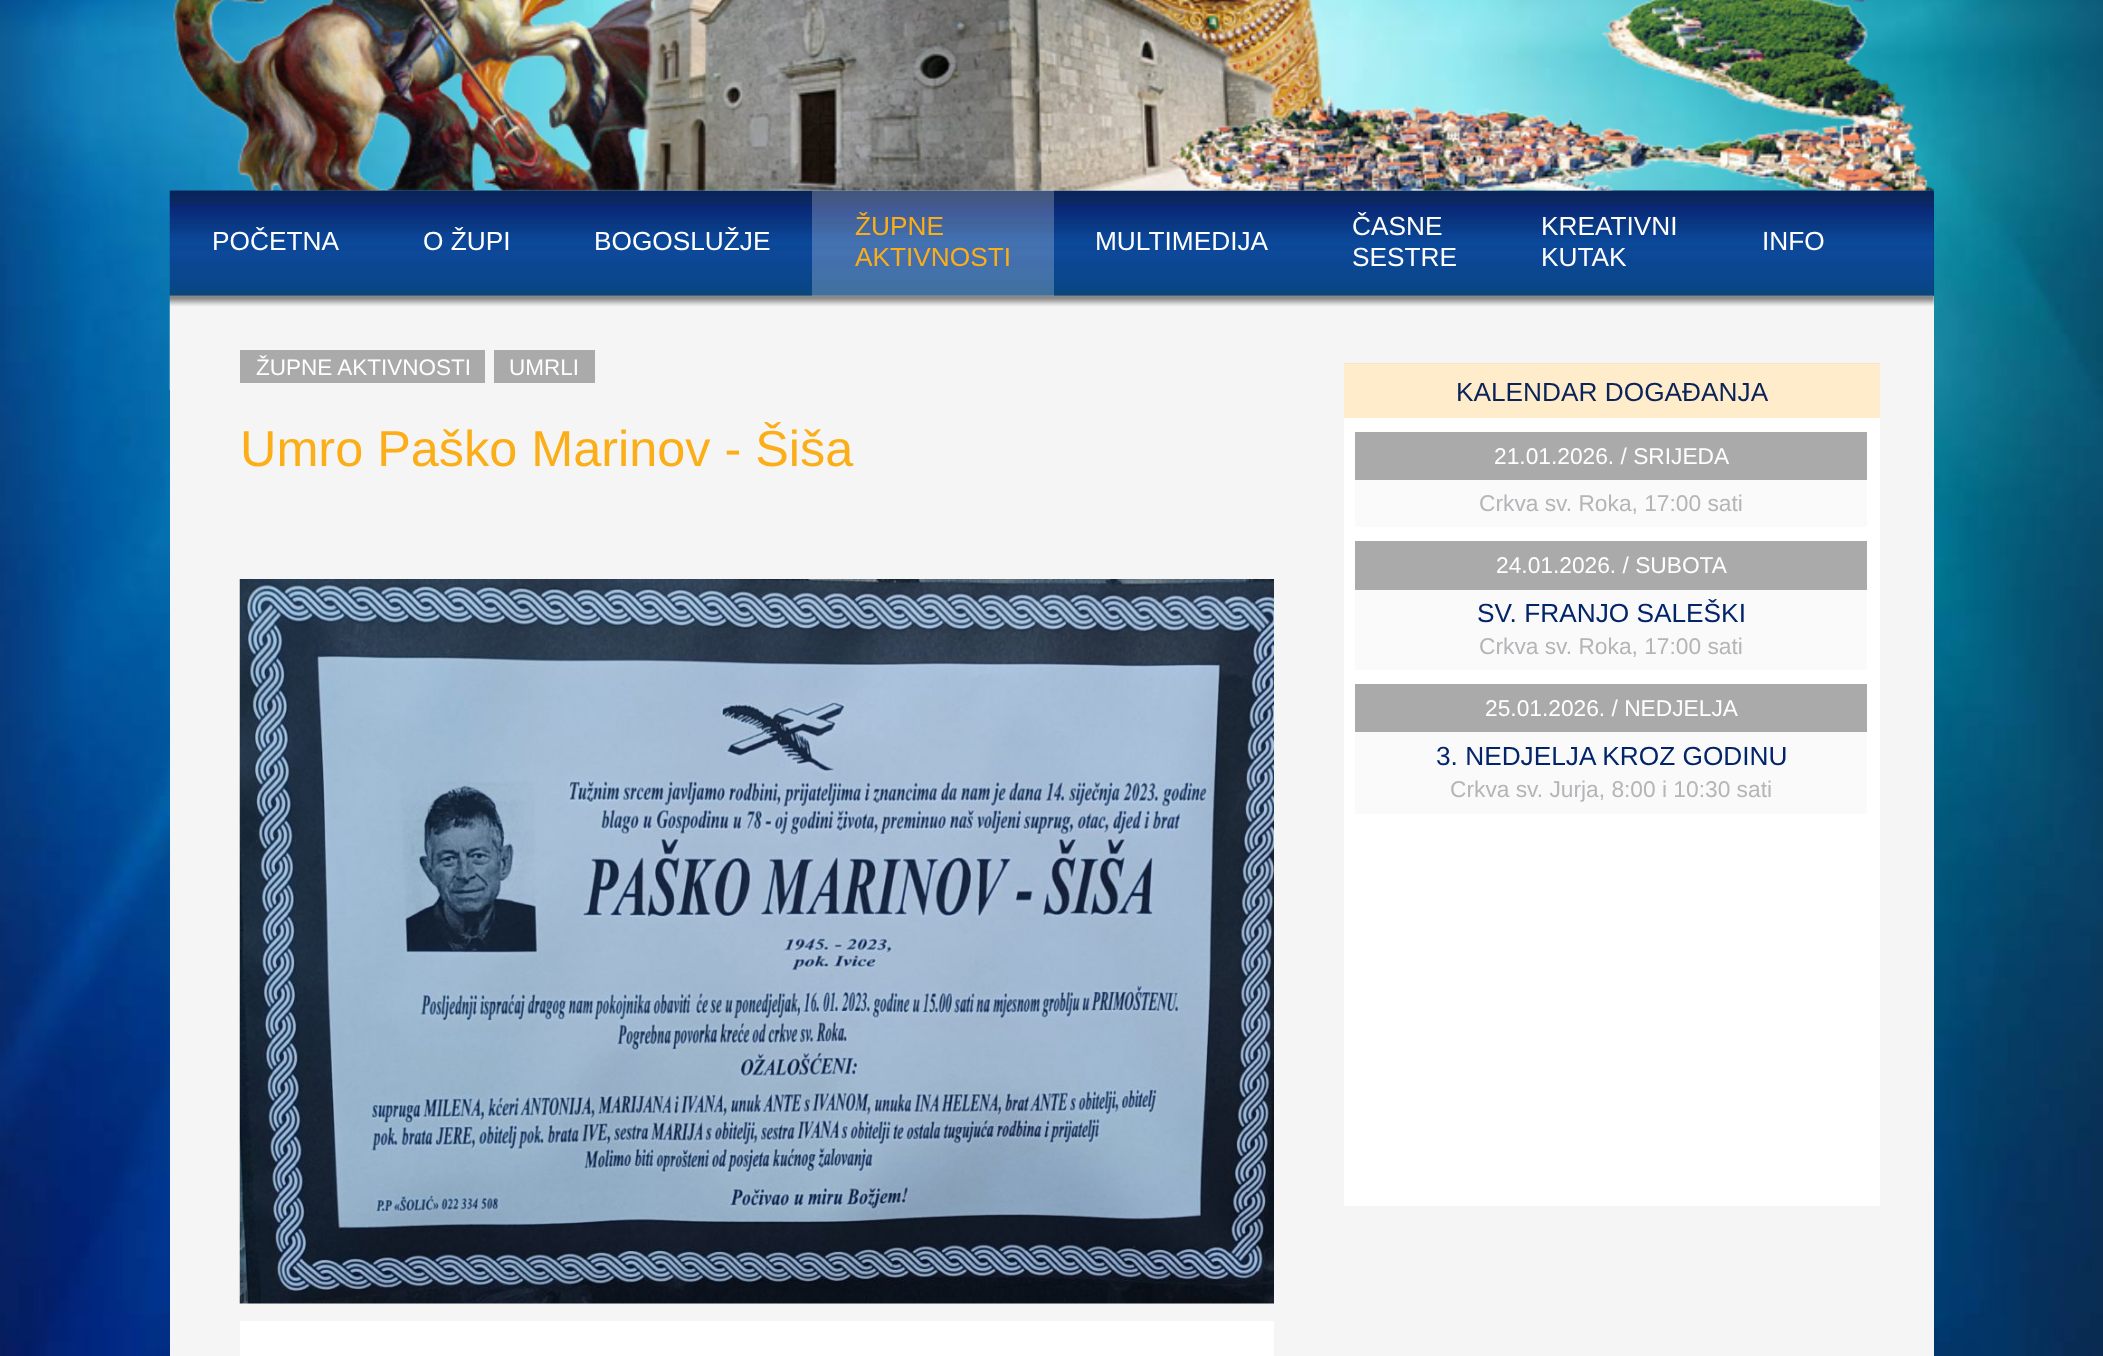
<!DOCTYPE html>
<meta charset="utf-8">
<style>body { margin: 0 } canvas { display: block }</style>
<canvas id="canvas" width="2103" height="1356"></canvas>
<img id="img1" src="images/1.png" hidden>
<img id="img2" src="images/3.png" hidden>
<img id="img3" src="images/4.png" hidden>
<img id="img4" src="images/2.png" hidden>
<img id="img5" src="images/5.png" hidden>
<script>
window.onload = function () {
    const canvas = document.getElementById('canvas');
    const context = canvas.getContext('2d');
    context.miterLimit = 4;
    context.fontKerning = 'normal';

    context.fillStyle = 'rgb(255, 255, 255)';
    context.fillRect(0, 0, 2103, 1356);
    context.drawImage(document.getElementById('img1'), 0, 0, 2103, 1356);
    context.fillStyle = 'rgb(2, 36, 107)';
    context.fillRect(170, 191, 1764, 105);
    context.drawImage(document.getElementById('img2'), 169, 190, 1765, 106);
    context.fillStyle = 'rgb(245, 245, 245)';
    context.fillRect(170, 296, 1764, 1060);
    context.drawImage(document.getElementById('img3'), 169, 295, 1765, 95);
    context.fillStyle = 'rgba(255, 255, 255, 0.23)';
    context.fillRect(812, 188, 242, 108);
    context.drawImage(document.getElementById('img4'), 172, 0, 1762, 191);
    context.fillStyle = 'rgb(170, 170, 170)';
    context.fillRect(240, 350, 245, 33);
    context.fillRect(494, 350, 101, 33);
    context.drawImage(document.getElementById('img5'), 239, 579, 1035, 725);
    context.fillStyle = 'rgb(255, 255, 255)';
    context.fillRect(240, 1321, 1034, 35);
    context.fillRect(1344, 364, 536, 842);
    context.fillStyle = 'rgba(251, 173, 26, 0.23)';
    context.fillRect(1344, 363, 536, 55);
    context.fillStyle = 'rgb(170, 170, 170)';
    context.fillRect(1355, 432, 512, 48);
    context.fillStyle = 'rgb(250, 250, 250)';
    context.fillRect(1355, 480, 512, 47);
    context.fillStyle = 'rgb(170, 170, 170)';
    context.fillRect(1355, 541, 512, 49);
    context.fillStyle = 'rgb(250, 250, 250)';
    context.fillRect(1355, 590, 512, 80);
    context.fillStyle = 'rgb(170, 170, 170)';
    context.fillRect(1355, 684, 512, 48);
    context.fillStyle = 'rgb(250, 250, 250)';
    context.fillRect(1355, 732, 512, 82);
    context.font = '26.25px Liberation Sans';
    context.fillStyle = 'rgb(255, 255, 255)';
    context.fillText('POČETNA', 212, 250);
    context.fillText('O ŽUPI', 423, 250);
    context.fillText('BOGOSLUŽJE', 594, 250);
    context.fillStyle = 'rgb(251, 174, 24)';
    context.fillText('ŽUPNE', 855, 235);
    context.fillText('AKTIVNOSTI', 855, 266);
    context.fillStyle = 'rgb(255, 255, 255)';
    context.fillText('MULTIMEDIJA', 1095, 250);
    context.fillText('ČASNE', 1352, 235);
    context.fillText('SESTRE', 1352, 266);
    context.fillText('KREATIVNI', 1541, 235);
    context.fillText('KUTAK', 1541, 266);
    context.fillText('INFO', 1762, 250);
    context.font = '22.5px Liberation Sans';
    context.fillText('ŽUPNE AKTIVNOSTI', 256, 375);
    context.fillText('UMRLI', 509, 375);
    context.font = '50.4px Liberation Sans';
    context.fillStyle = 'rgb(251, 174, 24)';
    context.fillText('Umro Paško Marinov - Šiša', 240, 466);
    context.font = '26.25px Liberation Sans';
    context.fillStyle = 'rgb(10, 35, 89)';
    context.fillText('KALENDAR DOGAĐANJA', 1456, 401);
    context.font = '22.75px Liberation Sans';
    context.fillStyle = 'rgb(255, 255, 255)';
    context.fillText('21.01.2026. / SRIJEDA', 1494, 464);
    context.fillStyle = 'rgb(180, 181, 183)';
    context.fillText('Crkva sv. Roka, 17:00 sati', 1479, 511);
    context.fillStyle = 'rgb(255, 255, 255)';
    context.fillText('24.01.2026. / SUBOTA', 1496, 573);
    context.font = '26.25px Liberation Sans';
    context.fillStyle = 'rgb(2, 36, 107)';
    context.fillText('SV. FRANJO SALEŠKI', 1477, 622);
    context.font = '22.75px Liberation Sans';
    context.fillStyle = 'rgb(180, 181, 183)';
    context.fillText('Crkva sv. Roka, 17:00 sati', 1479, 654);
    context.fillStyle = 'rgb(255, 255, 255)';
    context.fillText('25.01.2026. / NEDJELJA', 1485, 716);
    context.font = '26.25px Liberation Sans';
    context.fillStyle = 'rgb(2, 36, 107)';
    context.fillText('3. NEDJELJA KROZ GODINU', 1436, 765);
    context.font = '22.75px Liberation Sans';
    context.fillStyle = 'rgb(180, 181, 183)';
    context.fillText('Crkva sv. Jurja, 8:00 i 10:30 sati', 1450, 797);
};
</script>
